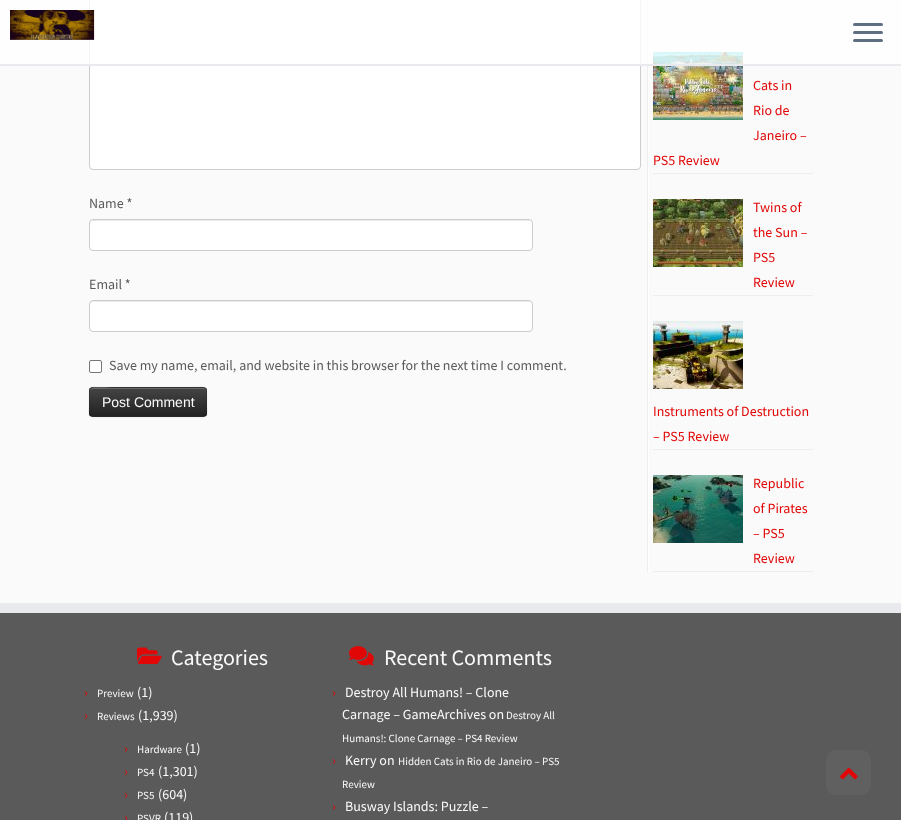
<!DOCTYPE html>
<meta charset="utf-8">
<style>body { margin: 0 } canvas { display: block }</style>
<canvas id="canvas" width="901" height="820"></canvas>
<img id="img1" src="images/2.png" hidden>
<img id="img2" src="images/1.png" hidden>
<img id="img3" src="images/3.png" hidden>
<img id="img4" src="images/4.png" hidden>
<img id="img5" src="images/5.png" hidden>
<img id="img6" src="images/6.png" hidden>
<img id="img7" src="images/7.png" hidden>
<img id="img8" src="images/8.png" hidden>
<script>
window.onload = function () {
    const canvas = document.getElementById('canvas');
    const context = canvas.getContext('2d');
    context.miterLimit = 4;
    context.fontKerning = 'normal';
    let gradient;

    context.fillStyle = 'rgb(250, 250, 250)';
    context.fillRect(0, 0, 901, 820);
    context.fillStyle = 'rgb(255, 255, 255)';
    context.beginPath();
    context.roundRect(89.5, -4.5, 551, 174, 3.5);
    context.fill();
    context.strokeStyle = 'rgb(204, 204, 204)';
    context.stroke();
    context.fillStyle = 'rgb(238, 238, 238)';
    context.fillRect(647, 0, 1, 572);
    context.fillStyle = 'rgb(255, 255, 255)';
    context.fillRect(648, 0, 1, 572);
    context.fillStyle = 'rgb(238, 238, 238)';
    context.fillRect(653, 26, 160, 1);
    context.drawImage(document.getElementById('img1'), 653, 52, 90, 68);
    context.fillStyle = 'rgba(255, 255, 255, 0.8)';
    context.fillRect(0, 0, 901, 64);
    context.fillStyle = 'rgb(233, 234, 238)';
    context.fillRect(0, 64, 901, 2);
    context.drawImage(document.getElementById('img2'), 10, 10, 85, 30);
    context.fillStyle = 'rgb(95, 111, 129)';
    context.beginPath();
    context.roundRect(853, 23, 30, 3, 1.5);
    context.fill();
    context.beginPath();
    context.roundRect(853, 31, 30, 3, 1.5);
    context.fill();
    context.beginPath();
    context.roundRect(853, 39, 30, 3, 1.5);
    context.fill();
    context.fillStyle = 'rgb(255, 255, 255)';
    context.beginPath();
    context.roundRect(89, 219, 444, 32, 4);
    context.fill();
    context.fillStyle = 'rgb(236, 236, 236)';
    context.beginPath();
    context.moveTo(93, 221);
    context.lineTo(529, 221);
    context.bezierCurveTo(531, 221, 532, 222, 532, 224);
    context.bezierCurveTo(532, 222, 531, 220, 529, 220);
    context.lineTo(92, 220);
    context.lineTo(90, 222);
    context.lineTo(90, 224);
    context.bezierCurveTo(90, 222, 91, 221, 93, 221);
    context.closePath();
    context.fill();
    context.beginPath();
    context.roundRect(89.5, 219.5, 443, 31, 3.5);
    context.stroke();
    context.fillStyle = 'rgb(255, 255, 255)';
    context.beginPath();
    context.roundRect(89, 300, 444, 32, 4);
    context.fill();
    context.fillStyle = 'rgb(236, 236, 236)';
    context.beginPath();
    context.moveTo(93, 302);
    context.lineTo(529, 302);
    context.bezierCurveTo(531, 302, 532, 303, 532, 305);
    context.bezierCurveTo(532, 303, 531, 301, 529, 301);
    context.lineTo(92, 301);
    context.lineTo(90, 303);
    context.lineTo(90, 305);
    context.bezierCurveTo(90, 303, 91, 302, 93, 302);
    context.closePath();
    context.fill();
    context.beginPath();
    context.roundRect(89.5, 300.5, 443, 31, 3.5);
    context.stroke();
    context.fillStyle = 'rgb(255, 255, 255)';
    context.beginPath();
    context.roundRect(89.5, 360.5, 12, 12, 1.5);
    context.fill();
    context.strokeStyle = 'rgb(118, 118, 118)';
    context.stroke();
    context.fillStyle = 'rgba(0, 0, 0, 0.05)';
    context.filter = 'blur(1px)';
    context.beginPath();
    context.roundRect(89, 388, 118, 30, 4);
    context.fill();
    context.filter = 'none';
    context.fillStyle = 'rgb(54, 54, 54)';
    context.beginPath();
    context.roundRect(89, 387, 118, 30, 4);
    context.fill();
    context.save();
    context.beginPath();
    context.roundRect(89, 387, 118, 30, 4);
    context.clip();
    gradient = context.createLinearGradient(148, 388, 148, 416);
    gradient.addColorStop(0, 'rgb(68, 68, 68)');
    gradient.addColorStop(1, 'rgb(34, 34, 34)');
    context.fillStyle = gradient;
    context.fillRect(89, 388, 118, 28);
    context.restore();
    context.fillStyle = 'rgba(255, 255, 255, 0.2)';
    context.beginPath();
    context.moveTo(93, 389);
    context.lineTo(203, 389);
    context.bezierCurveTo(205, 389, 206, 390, 206, 392);
    context.bezierCurveTo(206, 390, 205, 388, 203, 388);
    context.lineTo(111, 388);
    context.bezierCurveTo(110, 388, 90, 383, 90, 392);
    context.bezierCurveTo(90, 390, 91, 389, 93, 389);
    context.closePath();
    context.fill();
    context.beginPath();
    context.moveTo(205.5, 415.5);
    context.lineTo(203, 416.5);
    context.lineTo(92.5, 416.5);
    context.lineTo(90.5, 415.5);
    context.strokeStyle = 'rgba(0, 0, 0, 0.25)';
    context.stroke();
    context.beginPath();
    context.moveTo(90.5, 415.5);
    context.bezierCurveTo(88, 413, 89.5, 408.5, 89.5, 405.5);
    context.bezierCurveTo(89.5, 383, 86, 387.5, 111.5, 387.5);
    context.lineTo(184.5, 387.5);
    context.bezierCurveTo(210, 387.5, 206.5, 383, 206.5, 405.5);
    context.bezierCurveTo(206.5, 408.5, 208, 413, 205.5, 415.5);
    context.strokeStyle = 'rgba(0, 0, 0, 0.1)';
    context.stroke();
    context.fillStyle = 'rgb(238, 238, 238)';
    context.fillRect(653, 173, 160, 1);
    context.fillRect(653, 295, 160, 1);
    context.drawImage(document.getElementById('img3'), 653, 199, 90, 68);
    context.fillRect(653, 449, 160, 1);
    context.drawImage(document.getElementById('img4'), 653, 321, 90, 68);
    context.fillRect(653, 571, 160, 1);
    context.drawImage(document.getElementById('img5'), 653, 475, 90, 68);
    context.fillStyle = 'rgb(90, 90, 90)';
    context.fillRect(0, 613, 901, 207);
    context.fillStyle = 'rgb(233, 234, 238)';
    context.fillRect(0, 603, 901, 10);
    context.drawImage(document.getElementById('img6'), 137, 647, 25, 17);
    context.drawImage(document.getElementById('img7'), 349, 646, 25, 20);
    context.fillStyle = 'rgb(96, 96, 96)';
    context.beginPath();
    context.roundRect(826, 750, 45, 45, 10);
    context.fill();
    context.drawImage(document.getElementById('img8'), 840, 767, 18, 13);
    context.font = '14px Source Sans Pro';
    context.fillStyle = 'rgb(90, 90, 90)';
    context.fillText('Name *', 89, 208);
    context.fillText('Email *', 89, 289);
    context.fillText('Save my name, email, and website in this browser for the next time I comment.', 109, 370);
    context.font = '14px Liberation Sans';
    context.fillStyle = 'rgb(250, 250, 250)';
    context.fillText('Post Comment', 102, 407);
    context.font = '14px Source Sans Pro';
    context.fillStyle = 'rgb(225, 7, 7)';
    context.fillText('Cats in', 753, 90);
    context.fillText('Rio de', 753, 115);
    context.fillText('Janeiro –', 753, 140);
    context.fillText('PS5 Review', 653, 165);
    context.fillText('Twins of', 753, 212);
    context.fillText('the Sun –', 753, 237);
    context.fillText('PS5', 753, 262);
    context.fillText('Review', 753, 287);
    context.fillText('Instruments of Destruction', 653, 416);
    context.fillText('– PS5 Review', 653, 441);
    context.fillText('Republic', 753, 488);
    context.fillText('of Pirates', 753, 513);
    context.fillText('– PS5', 753, 538);
    context.fillText('Review', 753, 563);
    context.font = '22px Source Sans Pro';
    context.fillStyle = 'rgb(250, 250, 250)';
    context.fillText('Categories', 171, 665);
    context.font = '14px Source Sans Pro';
    context.fillStyle = 'rgb(225, 7, 7)';
    context.fillText('›', 84, 697);
    context.font = '11px Source Sans Pro';
    context.fillStyle = 'rgb(250, 250, 250)';
    context.fillText('Preview', 97, 697);
    context.font = '14px Source Sans Pro';
    context.fillText('(1)', 137, 697);
    context.fillStyle = 'rgb(225, 7, 7)';
    context.fillText('›', 84, 720);
    context.font = '11px Source Sans Pro';
    context.fillStyle = 'rgb(250, 250, 250)';
    context.fillText('Reviews', 97, 720);
    context.font = '14px Source Sans Pro';
    context.fillText('(1,939)', 138, 720);
    context.fillStyle = 'rgb(225, 7, 7)';
    context.fillText('›', 124, 753);
    context.font = '11px Source Sans Pro';
    context.fillStyle = 'rgb(250, 250, 250)';
    context.fillText('Hardware', 137, 753);
    context.font = '14px Source Sans Pro';
    context.fillText('(1)', 185, 753);
    context.fillStyle = 'rgb(225, 7, 7)';
    context.fillText('›', 124, 776);
    context.font = '11px Source Sans Pro';
    context.fillStyle = 'rgb(250, 250, 250)';
    context.fillText('PS4', 137, 776);
    context.font = '14px Source Sans Pro';
    context.fillText('(1,301)', 158, 776);
    context.fillStyle = 'rgb(225, 7, 7)';
    context.fillText('›', 124, 799);
    context.font = '11px Source Sans Pro';
    context.fillStyle = 'rgb(250, 250, 250)';
    context.fillText('PS5', 137, 799);
    context.font = '14px Source Sans Pro';
    context.fillText('(604)', 158, 799);
    context.fillStyle = 'rgb(225, 7, 7)';
    context.fillText('›', 124, 822);
    context.font = '11px Source Sans Pro';
    context.fillStyle = 'rgb(250, 250, 250)';
    context.fillText('PSVR', 137, 822);
    context.font = '14px Source Sans Pro';
    context.fillText('(119)', 164, 822);
    context.font = '22px Source Sans Pro';
    context.fillText('Recent Comments', 384, 665);
    context.font = '14px Source Sans Pro';
    context.fillStyle = 'rgb(225, 7, 7)';
    context.fillText('›', 332, 697);
    context.fillStyle = 'rgb(250, 250, 250)';
    context.fillText('Destroy All Humans! – Clone', 345, 697);
    context.fillText('Carnage – GameArchives on', 342, 719);
    context.font = '11px Source Sans Pro';
    context.fillText('Destroy All', 506, 719);
    context.fillText('Humans!: Clone Carnage – PS4 Review', 342, 742);
    context.font = '14px Source Sans Pro';
    context.fillStyle = 'rgb(225, 7, 7)';
    context.fillText('›', 332, 765);
    context.fillStyle = 'rgb(250, 250, 250)';
    context.fillText('Kerry on', 345, 765);
    context.font = '11px Source Sans Pro';
    context.fillText('Hidden Cats in Rio de Janeiro – PS5', 398, 765);
    context.fillText('Review', 342, 788);
    context.font = '14px Source Sans Pro';
    context.fillStyle = 'rgb(225, 7, 7)';
    context.fillText('›', 332, 811);
    context.fillStyle = 'rgb(250, 250, 250)';
    context.fillText('Busway Islands: Puzzle –', 345, 811);
};
</script>
